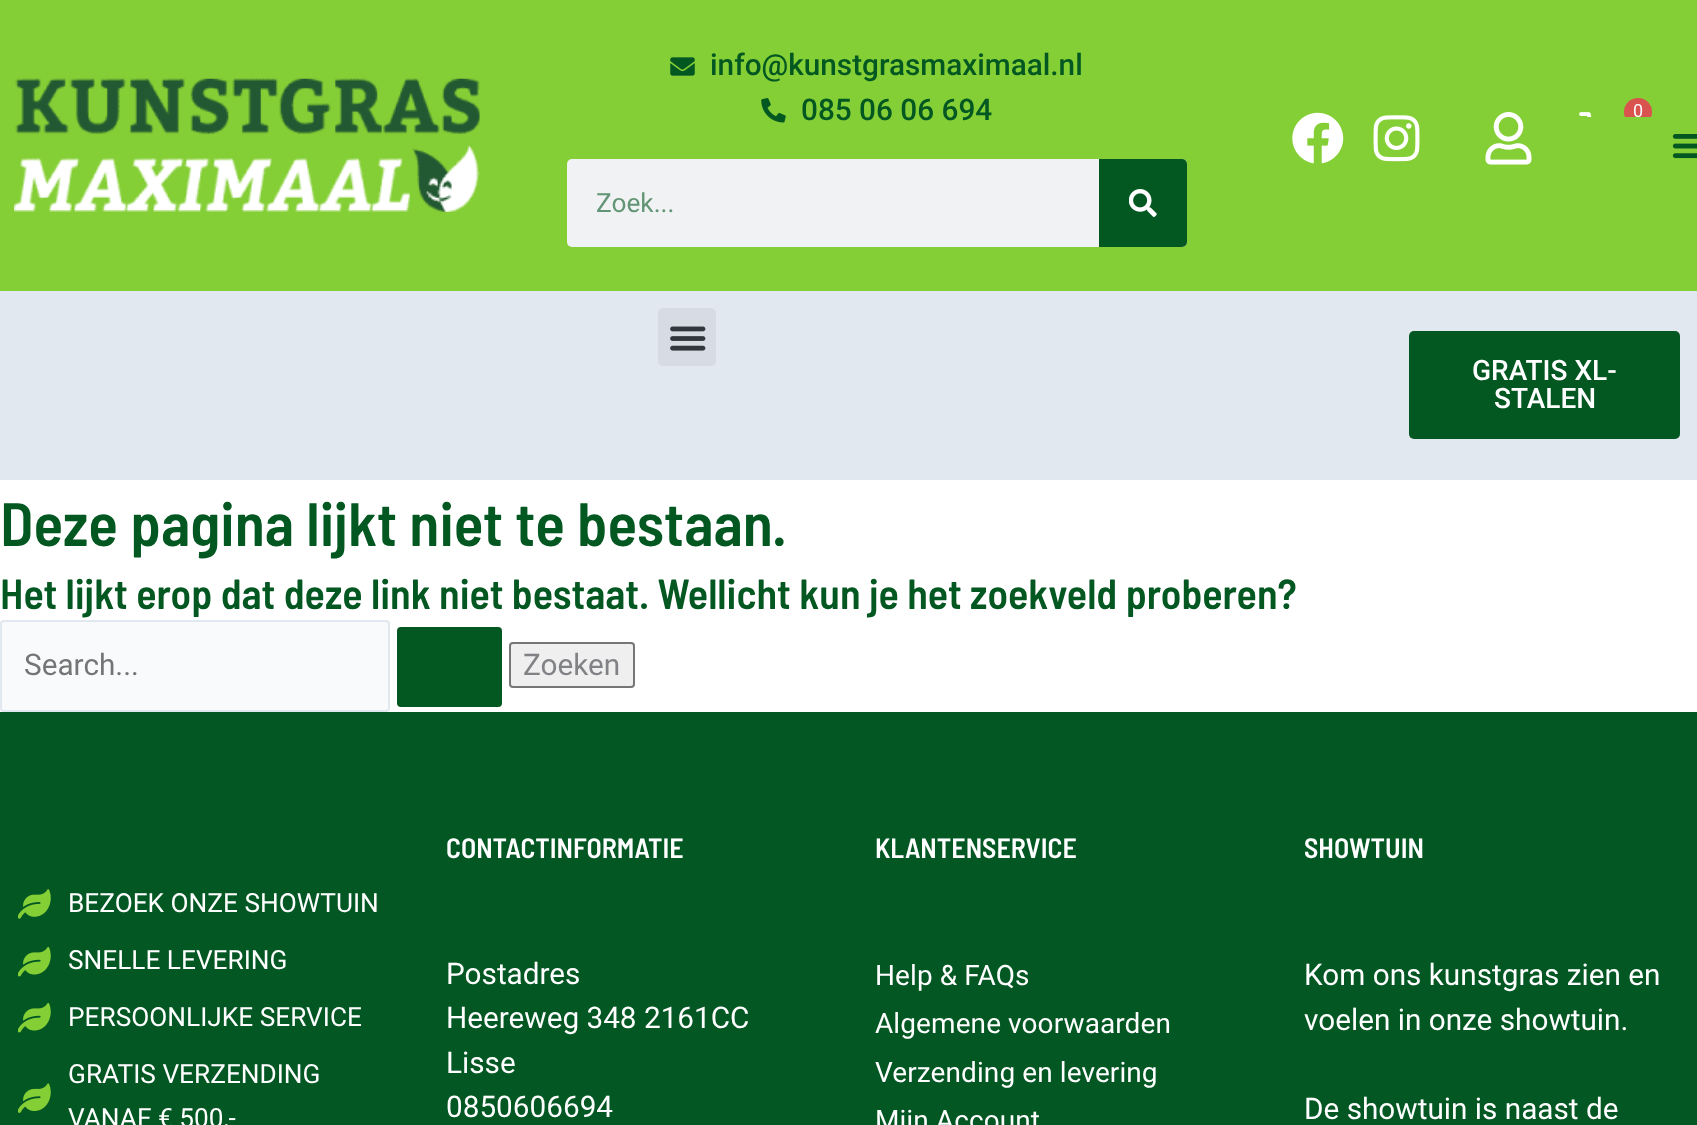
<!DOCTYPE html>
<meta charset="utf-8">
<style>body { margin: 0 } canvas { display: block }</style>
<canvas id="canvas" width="1697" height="1125"></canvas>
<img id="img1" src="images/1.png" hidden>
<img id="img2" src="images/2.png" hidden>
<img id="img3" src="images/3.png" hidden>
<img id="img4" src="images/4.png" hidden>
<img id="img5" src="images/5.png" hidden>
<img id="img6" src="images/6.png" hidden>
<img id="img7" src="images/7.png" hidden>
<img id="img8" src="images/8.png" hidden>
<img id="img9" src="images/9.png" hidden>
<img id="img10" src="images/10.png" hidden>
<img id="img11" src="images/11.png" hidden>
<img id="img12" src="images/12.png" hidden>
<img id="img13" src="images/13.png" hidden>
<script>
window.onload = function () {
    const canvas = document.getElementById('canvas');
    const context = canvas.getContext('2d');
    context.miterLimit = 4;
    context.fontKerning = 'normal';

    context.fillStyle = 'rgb(255, 255, 255)';
    context.fillRect(0, 0, 1697, 1125);
    context.fillStyle = 'rgb(133, 207, 54)';
    context.fillRect(0, 0, 1697, 291);
    context.drawImage(document.getElementById('img1'), 14, 78, 466, 134);
    context.drawImage(document.getElementById('img2'), 670, 57, 25, 19);
    context.drawImage(document.getElementById('img3'), 761, 98, 25, 25);
    context.fillStyle = 'rgb(241, 242, 243)';
    context.beginPath();
    context.roundRect(567, 159, 620, 88, 5);
    context.fill();
    context.fillStyle = 'rgb(3, 87, 33)';
    context.beginPath();
    context.roundRect(1099, 159, 88, 88, [0, 5, 5, 0]);
    context.fill();
    context.drawImage(document.getElementById('img4'), 1129, 189, 28, 28);
    context.drawImage(document.getElementById('img5'), 1292, 112, 52, 52);
    context.drawImage(document.getElementById('img6'), 1373, 115, 47, 47);
    context.drawImage(document.getElementById('img7'), 1485, 112, 47, 53);
    context.drawImage(document.getElementById('img8'), 1579, 112, 13, 5);
    context.fillStyle = 'rgb(217, 83, 79)';
    context.beginPath();
    context.arc(1638, 112, 14, 0, 2 * Math.PI);
    context.fill();
    context.drawImage(document.getElementById('img9'), 1672, 134, 25, 25);
    context.fillStyle = 'rgb(226, 232, 240)';
    context.fillRect(0, 291, 1697, 189);
    context.fillStyle = 'rgb(215, 220, 228)';
    context.beginPath();
    context.roundRect(658, 308, 58, 58, 5);
    context.fill();
    context.drawImage(document.getElementById('img10'), 670, 326, 36, 25);
    context.fillStyle = 'rgb(3, 87, 33)';
    context.beginPath();
    context.roundRect(1409, 331, 271, 108, 5);
    context.fill();
    context.fillStyle = 'rgb(249, 250, 251)';
    context.beginPath();
    context.roundRect(1, 621, 388, 90, 3);
    context.fill();
    context.strokeStyle = 'rgb(226, 232, 240)';
    context.lineWidth = 2;
    context.stroke();
    context.fillStyle = 'rgb(3, 87, 33)';
    context.beginPath();
    context.roundRect(397, 627, 105, 80, 4);
    context.fill();
    context.fillStyle = 'rgb(239, 239, 239)';
    context.beginPath();
    context.roundRect(510, 643, 124, 44, 3);
    context.fill();
    context.strokeStyle = 'rgb(118, 118, 118)';
    context.stroke();
    context.fillStyle = 'rgb(3, 87, 35)';
    context.fillRect(0, 712, 1697, 413);
    context.drawImage(document.getElementById('img11'), 18, 889, 33, 30);
    context.drawImage(document.getElementById('img12'), 18, 946, 33, 31);
    context.drawImage(document.getElementById('img12'), 18, 1002, 33, 31);
    context.drawImage(document.getElementById('img13'), 18, 1083, 33, 30);
    context.font = '500 29.75px Roboto';
    context.fillStyle = 'rgb(3, 87, 33)';
    context.fillText('info@kunstgrasmaximaal.nl', 710, 75);
    context.fillText('085 06 06 694', 801, 120);
    context.font = '26.25px Roboto';
    context.fillStyle = 'rgb(98, 149, 117)';
    context.fillText('Zoek...', 596, 212);
    context.font = '18px Roboto';
    context.fillStyle = 'rgb(255, 255, 255)';
    context.fillText('0', 1633, 117);
    context.fillStyle = 'rgb(132, 206, 54)';
    context.fillRect(1625, 117, 26, 9);
    context.font = '500 28px Roboto';
    context.fillStyle = 'rgb(255, 255, 255)';
    context.fillText('GRATIS XL-', 1472, 380);
    context.fillText('STALEN', 1494, 408);
    context.font = '600 61.25px Barlow Semi Condensed';
    context.fillStyle = 'rgb(3, 87, 33)';
    context.fillText('Deze pagina lijkt niet te bestaan.', 0, 546);
    context.font = '600 42px Barlow Semi Condensed';
    context.fillText('Het lijkt erop dat deze link niet bestaat. Wellicht kun je het zoekveld proberen?', 0, 609);
    context.font = '29.75px Roboto';
    context.fillStyle = 'rgb(117, 117, 117)';
    context.fillText('Search...', 24, 675);
    context.fillStyle = 'rgb(128, 130, 133)';
    context.fillText('Zoeken', 523, 675);
    context.font = '26.25px Roboto';
    context.fillStyle = 'rgb(255, 255, 255)';
    context.fillText('BEZOEK ONZE SHOWTUIN', 68, 912);
    context.fillText('SNELLE LEVERING', 68, 969);
    context.fillText('PERSOONLIJKE SERVICE', 68, 1026);
    context.fillText('GRATIS VERZENDING', 68, 1083);
    context.fillText('VANAF € 500,-', 68, 1127);
    context.font = '600 28px Barlow Semi Condensed';
    context.fillText('CONTACTINFORMATIE', 446, 858);
    context.font = '29.75px Roboto';
    context.fillText('Postadres', 446, 984);
    context.fillText('Heereweg 348 2161CC', 446, 1028);
    context.fillText('Lisse', 446, 1073);
    context.fillText('0850606694', 446, 1117);
    context.font = '600 28px Barlow Semi Condensed';
    context.fillText('KLANTENSERVICE', 875, 858);
    context.letterSpacing = '0.1px';
    context.font = '28px Roboto';
    context.fillText('Help & FAQs', 875, 985);
    context.fillText('Algemene voorwaarden', 875, 1033);
    context.fillText('Verzending en levering', 875, 1082);
    context.fillText('Mijn Account', 875, 1130);
    context.letterSpacing = '0px';
    context.font = '600 28px Barlow Semi Condensed';
    context.fillText('SHOWTUIN', 1304, 858);
    context.font = '29.75px Roboto';
    context.fillText('Kom ons kunstgras zien en', 1304, 985);
    context.fillText('voelen in onze showtuin.', 1304, 1030);
    context.fillText('De showtuin is naast de', 1304, 1119);
};
</script>
